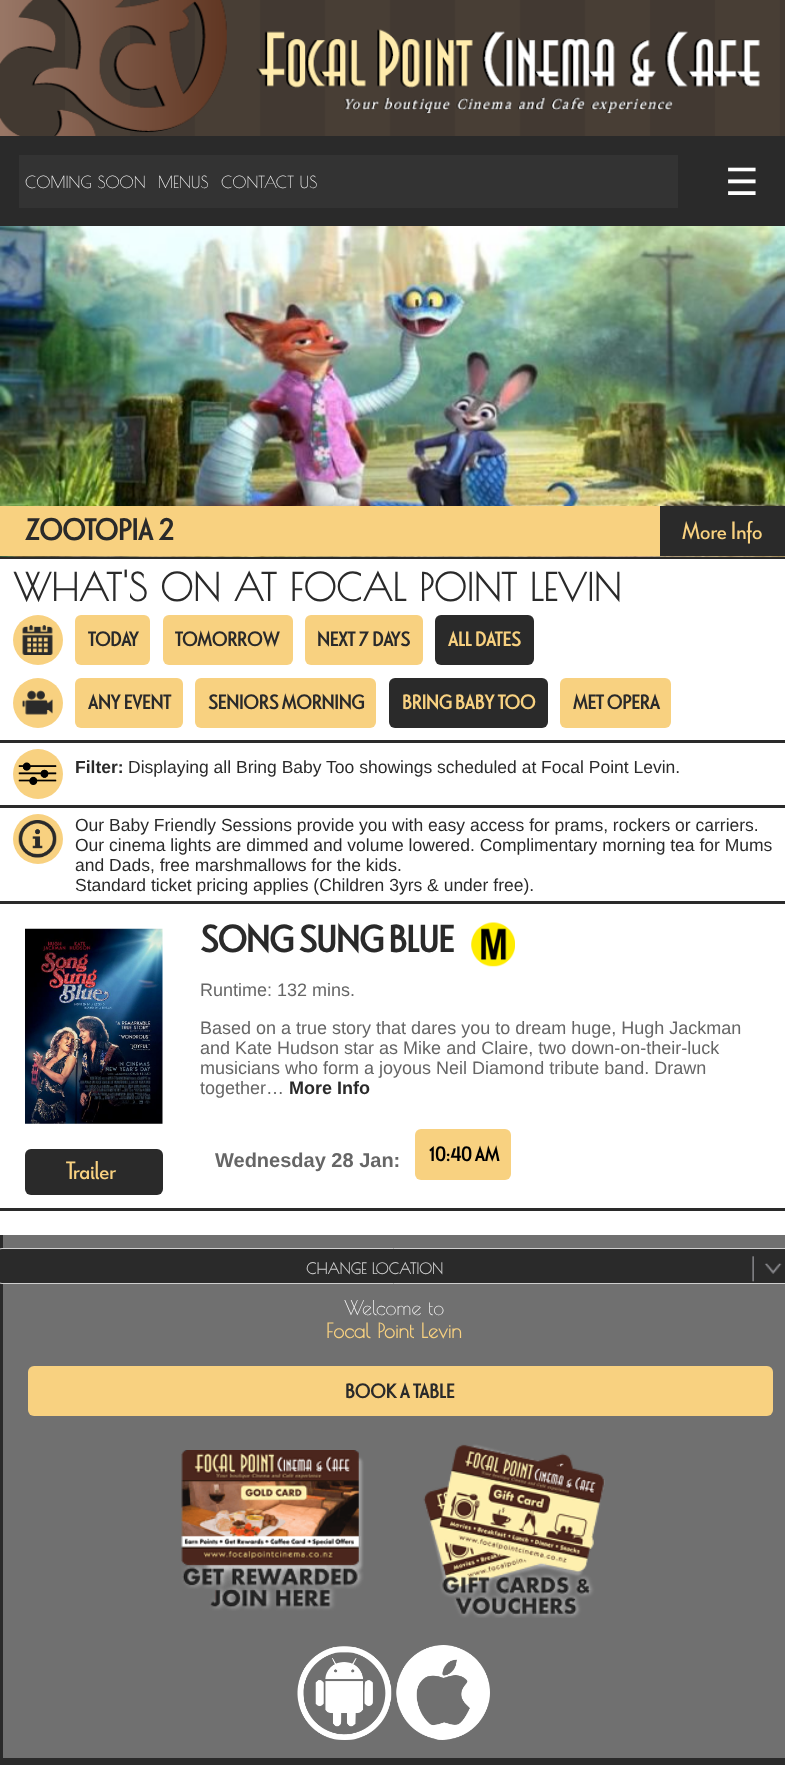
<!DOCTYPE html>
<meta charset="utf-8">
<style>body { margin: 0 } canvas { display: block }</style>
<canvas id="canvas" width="785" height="1765"></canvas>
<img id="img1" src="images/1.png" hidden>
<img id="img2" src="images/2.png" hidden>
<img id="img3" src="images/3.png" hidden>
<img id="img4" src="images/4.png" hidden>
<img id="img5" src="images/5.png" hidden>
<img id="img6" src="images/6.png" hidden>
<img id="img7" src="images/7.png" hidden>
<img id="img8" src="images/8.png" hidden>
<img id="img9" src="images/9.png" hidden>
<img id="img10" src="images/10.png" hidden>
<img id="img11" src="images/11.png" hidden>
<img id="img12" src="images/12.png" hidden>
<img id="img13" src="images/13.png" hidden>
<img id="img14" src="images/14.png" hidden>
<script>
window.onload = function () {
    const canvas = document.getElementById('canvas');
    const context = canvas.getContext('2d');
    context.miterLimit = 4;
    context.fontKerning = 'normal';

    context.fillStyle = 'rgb(66, 57, 49)';
    context.fillRect(0, 0, 785, 1765);
    context.drawImage(document.getElementById('img1'), 65, 0, 715, 136);
    context.drawImage(document.getElementById('img2'), 0, 0, 760, 136);
    context.fillStyle = 'rgb(42, 42, 42)';
    context.fillRect(0, 136, 785, 90);
    context.fillStyle = 'rgb(51, 51, 51)';
    context.fillRect(19, 155, 659, 53);
    context.fillStyle = 'rgb(42, 42, 42)';
    context.fillRect(0, 557, 785, 2);
    context.drawImage(document.getElementById('img3'), 0, 226, 785, 331);
    context.fillStyle = 'rgb(248, 209, 128)';
    context.fillRect(0, 506, 660, 50);
    context.fillStyle = 'rgb(42, 42, 42)';
    context.fillRect(660, 506, 125, 50);
    context.fillStyle = 'rgb(255, 255, 255)';
    context.fillRect(0, 559, 785, 676);
    context.fillStyle = 'rgb(42, 42, 42)';
    context.fillRect(0, 740, 785, 3);
    context.fillStyle = 'rgb(248, 209, 128)';
    context.beginPath();
    context.arc(38, 640, 25, 0, 2 * Math.PI);
    context.fill();
    context.drawImage(document.getElementById('img4'), 22, 625, 31, 30);
    context.beginPath();
    context.roundRect(75, 615, 75, 50, 6);
    context.fill();
    context.beginPath();
    context.roundRect(163, 615, 130, 50, 6);
    context.fill();
    context.beginPath();
    context.roundRect(305, 615, 118, 50, 6);
    context.fill();
    context.fillStyle = 'rgb(42, 42, 42)';
    context.beginPath();
    context.roundRect(435, 615, 99, 50, 6);
    context.fill();
    context.fillStyle = 'rgb(248, 209, 128)';
    context.beginPath();
    context.arc(38, 703, 25, 0, 2 * Math.PI);
    context.fill();
    context.drawImage(document.getElementById('img5'), 22, 690, 31, 25);
    context.beginPath();
    context.roundRect(75, 678, 108, 50, 6);
    context.fill();
    context.beginPath();
    context.roundRect(195, 678, 181, 50, 6);
    context.fill();
    context.fillStyle = 'rgb(42, 42, 42)';
    context.beginPath();
    context.roundRect(389, 678, 159, 50, 6);
    context.fill();
    context.fillStyle = 'rgb(248, 209, 128)';
    context.beginPath();
    context.roundRect(560, 678, 111, 50, 6);
    context.fill();
    context.fillStyle = 'rgb(42, 42, 42)';
    context.fillRect(0, 805, 785, 3);
    context.fillStyle = 'rgb(248, 209, 128)';
    context.beginPath();
    context.arc(38, 774, 25, 0, 2 * Math.PI);
    context.fill();
    context.drawImage(document.getElementById('img6'), 18, 762, 39, 23);
    context.fillStyle = 'rgb(42, 42, 42)';
    context.fillRect(0, 901, 785, 3);
    context.fillStyle = 'rgb(248, 209, 128)';
    context.beginPath();
    context.arc(38, 839, 25, 0, 2 * Math.PI);
    context.fill();
    context.drawImage(document.getElementById('img7'), 18, 820, 39, 38);
    context.fillStyle = 'rgb(42, 42, 42)';
    context.fillRect(0, 1208, 785, 3);
    context.drawImage(document.getElementById('img8'), 25, 928, 138, 196);
    context.beginPath();
    context.roundRect(25, 1149, 138, 46, 6);
    context.fill();
    context.drawImage(document.getElementById('img9'), 471, 922, 44, 45);
    context.fillStyle = 'rgb(248, 209, 128)';
    context.beginPath();
    context.roundRect(415, 1129, 96, 51, 6);
    context.fill();
    context.fillStyle = 'rgb(112, 112, 112)';
    context.fillRect(3, 1235, 782, 523);
    context.fillStyle = 'rgb(42, 42, 42)';
    context.fillRect(0, 1235, 3, 523);
    context.beginPath();
    context.roundRect(-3.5, 1248.5, 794, 35, 5.5);
    context.fill();
    context.strokeStyle = 'rgb(207, 207, 207)';
    context.stroke();
    context.drawImage(document.getElementById('img10'), 752, 1256, 30, 26);
    context.fillStyle = 'rgb(248, 209, 128)';
    context.beginPath();
    context.roundRect(28, 1366, 745, 50, 6);
    context.fill();
    context.drawImage(document.getElementById('img11'), 181, 1450, 183, 161);
    context.drawImage(document.getElementById('img12'), 423, 1444, 182, 174);
    context.drawImage(document.getElementById('img13'), 297, 1646, 95, 94);
    context.drawImage(document.getElementById('img14'), 396, 1645, 94, 95);
    context.fillStyle = 'rgb(42, 42, 42)';
    context.fillRect(0, 1758, 785, 7);
    context.font = '16.25px Poiret One';
    context.fillStyle = 'rgb(255, 255, 255)';
    context.fillText('COMING SOON', 25, 188);
    context.fillText('MENUS', 158, 188);
    context.fillText('CONTACT US', 221, 188);
    context.font = '37.5px DejaVu Sans';
    context.fillText('☰', 725, 195);
    context.font = 'bold 30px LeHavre';
    context.fillStyle = 'rgb(42, 42, 42)';
    context.fillText('ZOOTOPIA 2', 25, 540);
    context.font = '25px LeHavre';
    context.fillStyle = 'rgb(248, 209, 128)';
    context.fillText('More Info', 682, 539);
    context.font = 'bold 37.5px Poiret One';
    context.fillStyle = 'rgb(42, 42, 42)';
    context.fillText('WHAT\'S ON AT FOCAL POINT LEVIN', 13, 601);
    context.font = 'bold 20px LeHavre';
    context.fillText('TODAY', 88, 646);
    context.fillText('TOMORROW', 175, 646);
    context.fillText('NEXT 7 DAYS', 317, 646);
    context.fillStyle = 'rgb(248, 209, 128)';
    context.fillText('ALL DATES', 448, 646);
    context.fillStyle = 'rgb(42, 42, 42)';
    context.fillText('ANY EVENT', 88, 709);
    context.fillText('SENIORS MORNING', 208, 709);
    context.fillStyle = 'rgb(248, 209, 128)';
    context.fillText('BRING BABY TOO', 402, 709);
    context.fillStyle = 'rgb(42, 42, 42)';
    context.fillText('MET OPERA', 573, 709);
    context.font = 'bold 17.5px Liberation Sans';
    context.fillText('Filter:', 75, 773);
    context.font = '17.5px Liberation Sans';
    context.fillText('Displaying all Bring Baby Too showings scheduled at Focal Point Levin.', 128, 773);
    context.fillText('Our Baby Friendly Sessions provide you with easy access for prams, rockers or carriers.', 75, 831);
    context.fillText('Our cinema lights are dimmed and volume lowered. Complimentary morning tea for Mums', 75, 851);
    context.fillText('and Dads, free marshmallows for the kids.', 75, 871);
    context.fillText('Standard ticket pricing applies (Children 3yrs & under free).', 75, 891);
    context.font = '25px LeHavre';
    context.fillStyle = 'rgb(248, 209, 128)';
    context.fillText('Trailer', 66, 1179);
    context.letterSpacing = '-0.6px';
    context.font = 'bold 37.5px LeHavre';
    context.fillStyle = 'rgb(42, 42, 42)';
    context.fillText('SONG SUNG BLUE', 200, 952);
    context.letterSpacing = '0px';
    context.font = '18px Liberation Sans';
    context.fillStyle = 'rgb(102, 102, 102)';
    context.fillText('Runtime: 132 mins.', 200, 996);
    context.fillText('Based on a true story that dares you to dream huge, Hugh Jackman', 200, 1034);
    context.fillText('and Kate Hudson star as Mike and Claire, two down-on-their-luck', 200, 1054);
    context.fillText('musicians who form a joyous Neil Diamond tribute band. Drawn', 200, 1074);
    context.fillText('together…', 200, 1094);
    context.font = 'bold 18px Liberation Sans';
    context.fillStyle = 'rgb(42, 42, 42)';
    context.fillText('More Info', 289, 1094);
    context.font = 'bold 20px Liberation Sans';
    context.fillStyle = 'rgb(102, 102, 102)';
    context.fillText('Wednesday 28 Jan:', 215, 1167);
    context.font = 'bold 20px LeHavre';
    context.fillStyle = 'rgb(0, 0, 0)';
    context.fillText('10:40 AM', 428, 1161);
    context.font = 'bold 15px Poiret One';
    context.fillStyle = 'rgb(204, 204, 204)';
    context.fillText('CHANGE LOCATION', 306, 1274);
    context.font = '20px Poiret One';
    context.fillStyle = 'rgb(255, 255, 255)';
    context.fillText('Welcome to', 344, 1315);
    context.font = 'bold 20px Poiret One';
    context.fillStyle = 'rgb(248, 209, 128)';
    context.fillText('Focal Point Levin', 326, 1338);
    context.font = 'bold 20px LeHavre';
    context.fillStyle = 'rgb(42, 42, 42)';
    context.fillText('BOOK A TABLE', 345, 1398);
};
</script>
